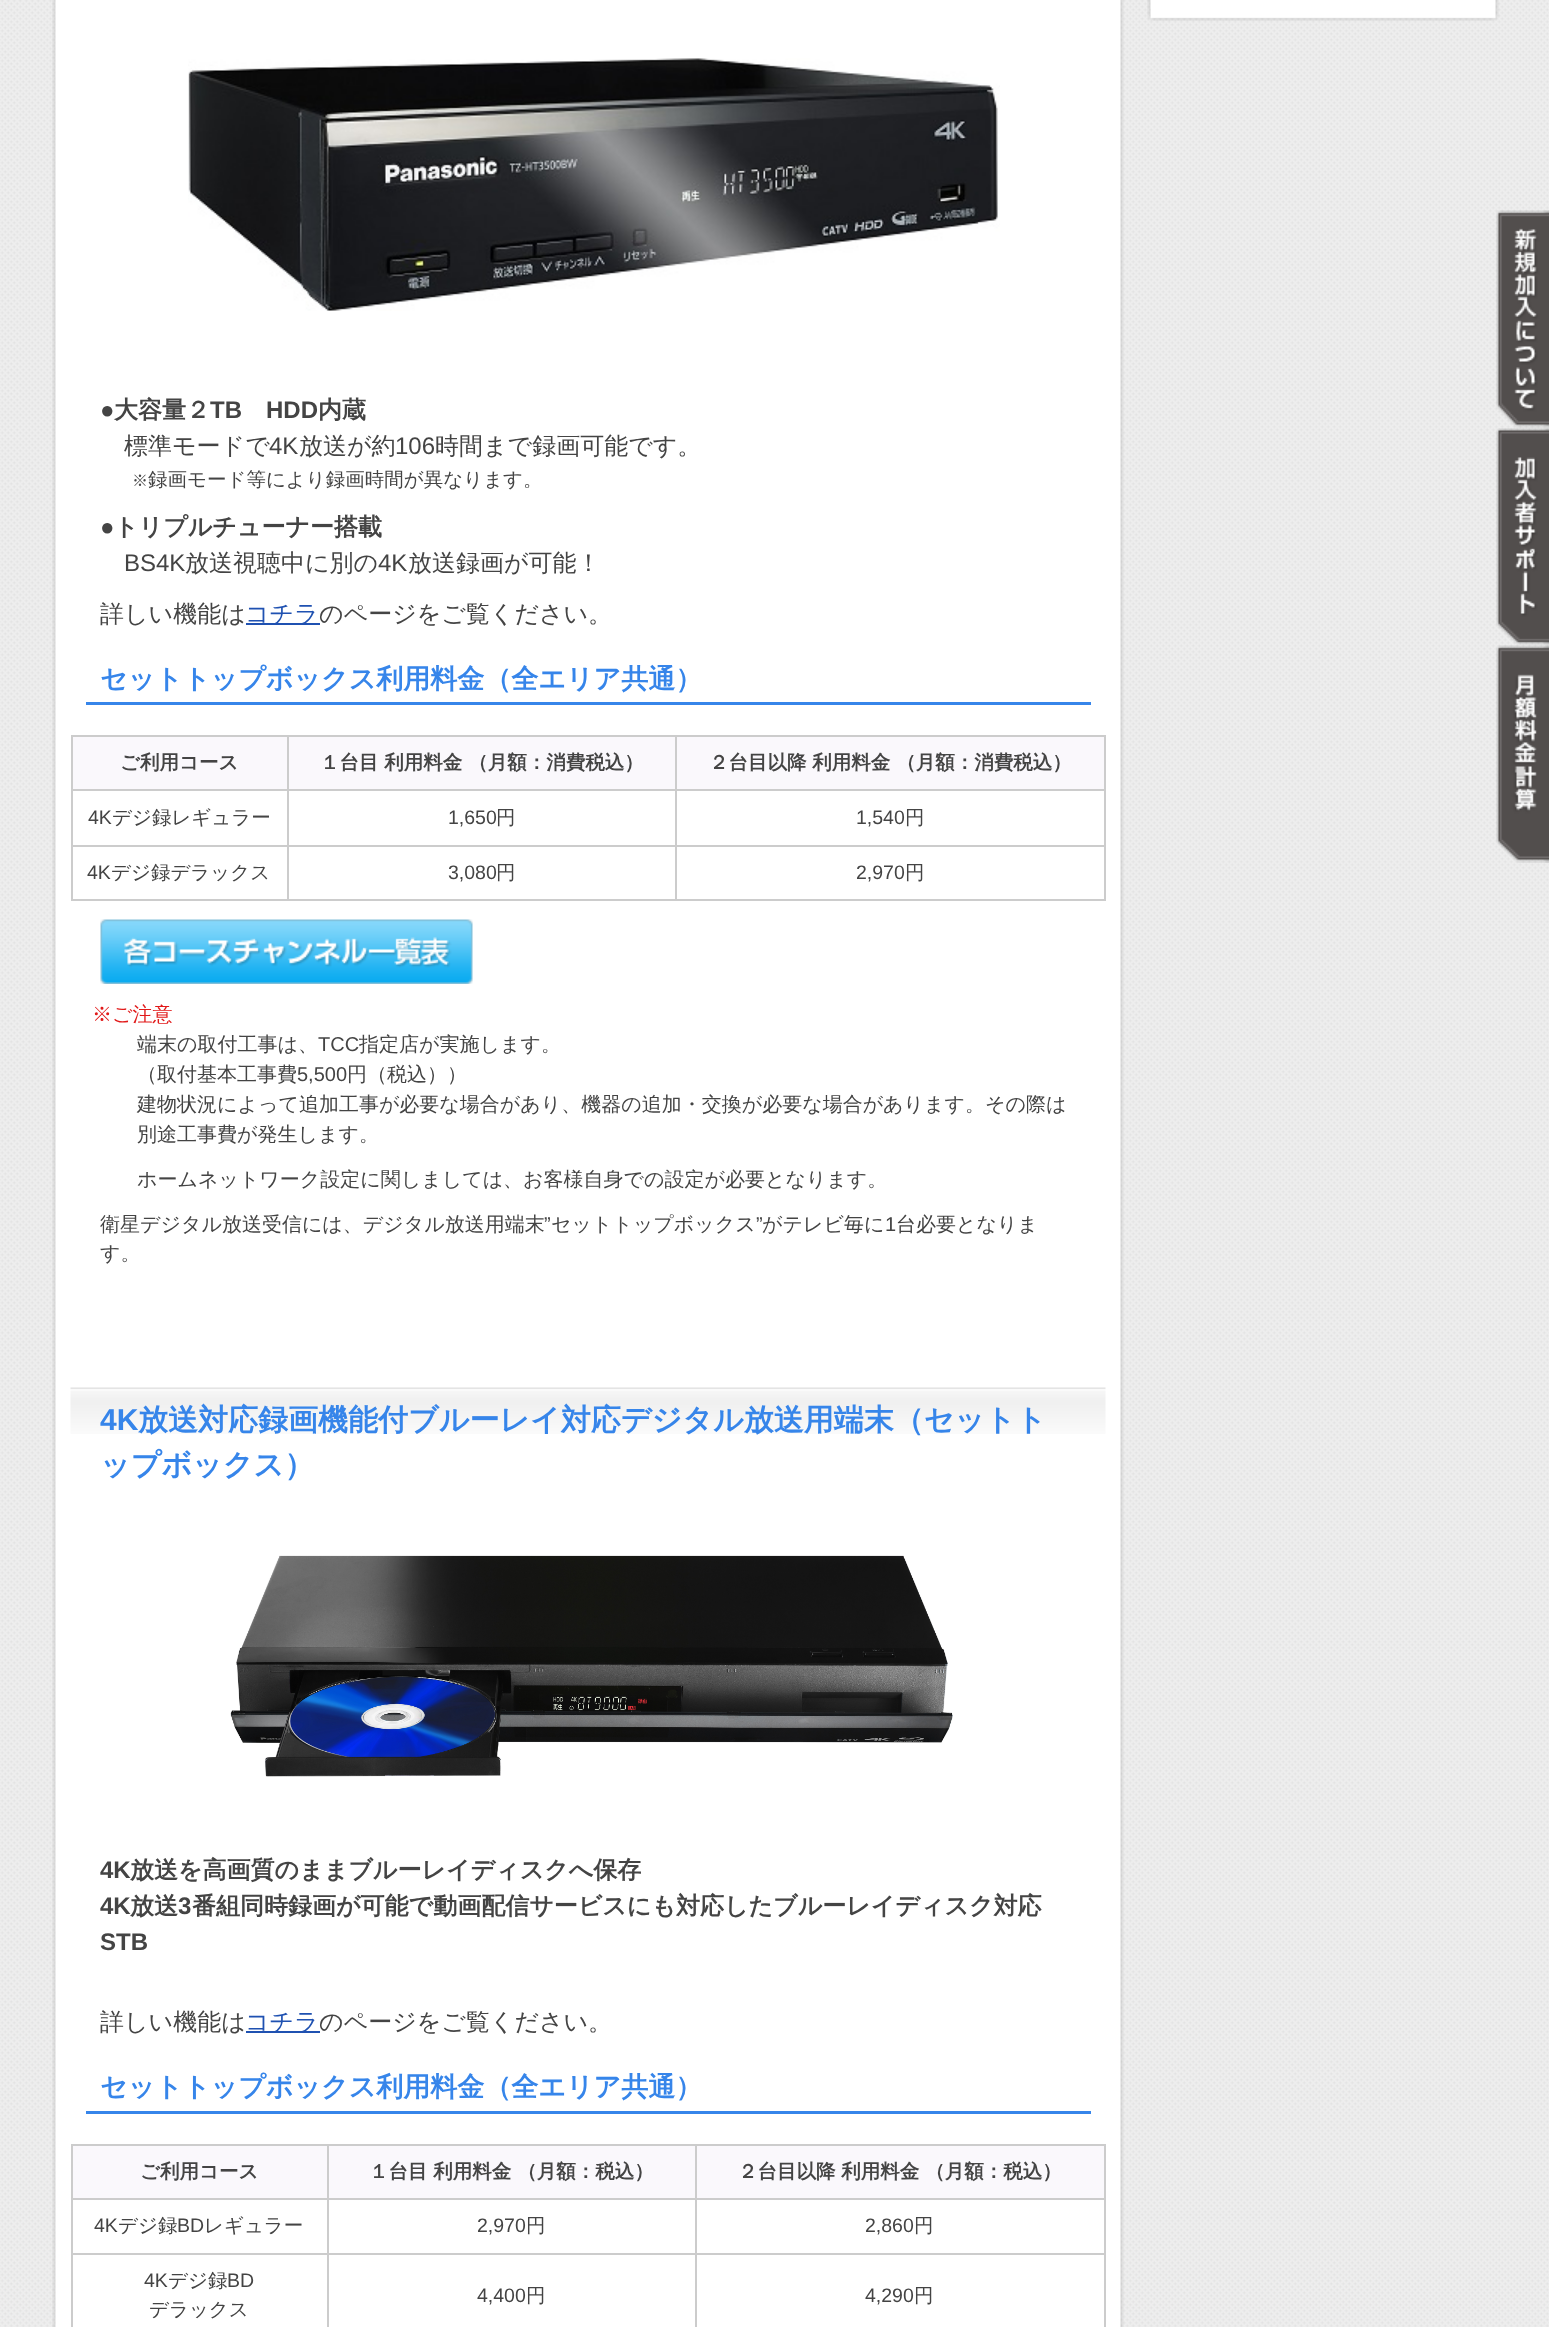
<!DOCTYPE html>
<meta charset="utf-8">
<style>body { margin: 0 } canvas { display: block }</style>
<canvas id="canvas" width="1549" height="2327"></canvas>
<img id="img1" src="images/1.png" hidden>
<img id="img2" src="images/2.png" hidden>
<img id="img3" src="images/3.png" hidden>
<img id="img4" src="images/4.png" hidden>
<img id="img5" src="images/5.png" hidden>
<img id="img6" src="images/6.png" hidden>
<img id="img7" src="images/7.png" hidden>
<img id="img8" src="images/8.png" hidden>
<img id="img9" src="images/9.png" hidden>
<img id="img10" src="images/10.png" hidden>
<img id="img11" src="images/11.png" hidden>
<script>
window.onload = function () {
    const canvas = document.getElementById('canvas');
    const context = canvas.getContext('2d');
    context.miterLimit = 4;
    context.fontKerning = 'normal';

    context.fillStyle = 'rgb(255, 255, 255)';
    context.fillRect(0, 0, 1549, 2327);
    context.drawImage(document.getElementById('img1'), 0, 0, 1549, 2327);
    context.drawImage(document.getElementById('img2'), 1147, 9, 352, 12);
    context.drawImage(document.getElementById('img3'), 1147, 0, 352, 9);
    context.drawImage(document.getElementById('img4'), 52, 0, 1072, 2327);
    context.drawImage(document.getElementById('img5'), 188, 58, 812, 253);
    context.fillStyle = 'rgb(31, 81, 177)';
    context.fillRect(246, 623, 74, 2);
    context.fillStyle = 'rgb(54, 133, 234)';
    context.fillRect(86, 702, 1005, 3);
    context.fillStyle = 'rgb(250, 248, 252)';
    context.fillRect(73, 737, 214, 52);
    context.fillStyle = 'rgb(204, 204, 204)';
    context.fillRect(675, 735, 431, 2);
    context.fillRect(675, 789, 431, 2);
    context.fillRect(675, 845, 431, 2);
    context.fillRect(1104, 845, 2, 55);
    context.fillRect(675, 899, 431, 2);
    context.fillRect(675, 845, 2, 55);
    context.fillRect(287, 845, 390, 2);
    context.fillRect(675, 789, 2, 57);
    context.fillRect(287, 789, 390, 2);
    context.fillRect(675, 735, 2, 56);
    context.fillRect(287, 735, 390, 2);
    context.fillRect(287, 899, 390, 2);
    context.fillRect(287, 845, 2, 55);
    context.fillRect(71, 845, 217, 2);
    context.fillRect(287, 789, 2, 57);
    context.fillRect(71, 789, 217, 2);
    context.fillRect(287, 735, 2, 56);
    context.fillRect(71, 735, 217, 2);
    context.fillRect(71, 899, 217, 2);
    context.fillRect(71, 845, 2, 55);
    context.fillRect(71, 789, 2, 57);
    context.fillRect(71, 735, 2, 56);
    context.fillStyle = 'rgb(250, 248, 252)';
    context.fillRect(289, 737, 386, 52);
    context.fillRect(677, 737, 427, 52);
    context.fillStyle = 'rgb(204, 204, 204)';
    context.fillRect(1104, 789, 2, 57);
    context.fillRect(1104, 735, 2, 56);
    context.drawImage(document.getElementById('img6'), 100, 919, 373, 65);
    context.drawImage(document.getElementById('img7'), 70, 1387, 1036, 47);
    context.drawImage(document.getElementById('img8'), 230, 1555, 723, 222);
    context.fillStyle = 'rgb(31, 81, 177)';
    context.fillRect(246, 2031, 74, 2);
    context.fillStyle = 'rgb(54, 133, 234)';
    context.fillRect(86, 2111, 1005, 3);
    context.fillStyle = 'rgb(250, 248, 252)';
    context.fillRect(73, 2146, 254, 52);
    context.fillStyle = 'rgb(204, 204, 204)';
    context.fillRect(695, 2144, 411, 2);
    context.fillRect(695, 2198, 411, 2);
    context.fillRect(695, 2253, 411, 2);
    context.fillRect(695, 2253, 2, 74);
    context.fillRect(327, 2253, 369, 2);
    context.fillRect(695, 2198, 2, 57);
    context.fillRect(327, 2198, 369, 2);
    context.fillRect(695, 2144, 2, 55);
    context.fillRect(327, 2144, 369, 2);
    context.fillRect(327, 2253, 2, 74);
    context.fillRect(71, 2253, 258, 2);
    context.fillRect(327, 2198, 2, 57);
    context.fillRect(71, 2198, 258, 2);
    context.fillRect(327, 2144, 2, 55);
    context.fillRect(71, 2144, 258, 2);
    context.fillRect(71, 2253, 2, 74);
    context.fillRect(71, 2198, 2, 57);
    context.fillRect(71, 2144, 2, 55);
    context.fillStyle = 'rgb(250, 248, 252)';
    context.fillRect(329, 2146, 366, 52);
    context.fillRect(697, 2146, 407, 52);
    context.fillStyle = 'rgb(204, 204, 204)';
    context.fillRect(1104, 2253, 2, 74);
    context.fillRect(1104, 2198, 2, 57);
    context.fillRect(1104, 2144, 2, 55);
    context.drawImage(document.getElementById('img9'), 1496, 210, 53, 218);
    context.drawImage(document.getElementById('img10'), 1496, 428, 53, 217);
    context.drawImage(document.getElementById('img11'), 1496, 645, 53, 218);
    context.font = 'bold 24px Liberation Sans';
    context.fillStyle = 'rgb(68, 68, 68)';
    context.fillText('●', 100, 418);
    context.font = 'bold 24px WenQuanYi Zen Hei';
    context.fillText('大容量２', 114, 418);
    context.font = 'bold 24px Liberation Sans';
    context.fillText('TB', 210, 418);
    context.fillText('HDD', 266, 418);
    context.font = 'bold 24px WenQuanYi Zen Hei';
    context.fillText('内蔵', 318, 418);
    context.font = '500 24px WenQuanYi Zen Hei';
    context.fillText('標準モードで', 124, 454);
    context.font = '24px Liberation Sans';
    context.fillText('4K', 269, 454);
    context.font = '500 24px WenQuanYi Zen Hei';
    context.fillText('放送が約', 299, 454);
    context.font = '24px Liberation Sans';
    context.fillText('106', 395, 454);
    context.font = '500 24px WenQuanYi Zen Hei';
    context.fillText('時間まで録画可能です。', 435, 454);
    context.font = '500 16px WenQuanYi Zen Hei';
    context.fillText('※', 132, 486);
    context.font = '500 19.5px WenQuanYi Zen Hei';
    context.fillText('録画モード等により録画時間が異なります。', 148, 486);
    context.font = 'bold 24px Liberation Sans';
    context.fillText('●', 100, 535);
    context.font = 'bold 24px WenQuanYi Zen Hei';
    context.fillText('トリプルチューナー搭載', 114, 535);
    context.font = '24px Liberation Sans';
    context.fillText('BS4K', 124, 571);
    context.font = '500 24px WenQuanYi Zen Hei';
    context.fillText('放送視聴中に別の', 185, 571);
    context.font = '24px Liberation Sans';
    context.fillText('4K', 378, 571);
    context.font = '500 24px WenQuanYi Zen Hei';
    context.fillText('放送録画が可能！', 408, 571);
    context.fillText('詳しい機能は', 100, 622);
    context.fillStyle = 'rgb(31, 81, 177)';
    context.fillText('コチラ', 245, 622);
    context.fillStyle = 'rgb(68, 68, 68)';
    context.fillText('のページをご覧ください。', 319, 622);
    context.font = 'bold 27px WenQuanYi Zen Hei';
    context.fillStyle = 'rgb(54, 133, 234)';
    context.fillText('セットトップボックス利用料金（全エリア共通）', 100, 688);
    context.font = 'bold 19.5px WenQuanYi Zen Hei';
    context.fillStyle = 'rgb(68, 68, 68)';
    context.fillText('ご利用コース', 120, 769);
    context.fillText('１台目 利用料金 （月額：消費税込）', 320, 769);
    context.fillText('２台目以降 利用料金 （月額：消費税込）', 709, 769);
    context.font = '19.5px Liberation Sans';
    context.fillText('4K', 88, 824);
    context.font = '500 19.5px WenQuanYi Zen Hei';
    context.fillText('デジ録レギュラー', 112, 824);
    context.font = '19.5px Liberation Sans';
    context.fillText('1,650', 448, 824);
    context.font = '500 19.5px WenQuanYi Zen Hei';
    context.fillText('円', 496, 824);
    context.font = '19.5px Liberation Sans';
    context.fillText('1,540', 856, 824);
    context.font = '500 19.5px WenQuanYi Zen Hei';
    context.fillText('円', 905, 824);
    context.font = '19.5px Liberation Sans';
    context.fillText('4K', 87, 879);
    context.font = '500 19.5px WenQuanYi Zen Hei';
    context.fillText('デジ録デラックス', 111, 879);
    context.font = '19.5px Liberation Sans';
    context.fillText('3,080', 448, 879);
    context.font = '500 19.5px WenQuanYi Zen Hei';
    context.fillText('円', 496, 879);
    context.font = '19.5px Liberation Sans';
    context.fillText('2,970', 856, 879);
    context.font = '500 19.5px WenQuanYi Zen Hei';
    context.fillText('円', 905, 879);
    context.font = '500 20px WenQuanYi Zen Hei';
    context.fillStyle = 'rgb(225, 25, 25)';
    context.fillText('※ご注意', 92, 1021);
    context.fillStyle = 'rgb(68, 68, 68)';
    context.fillText('端末の取付工事は、', 137, 1051);
    context.font = '20px Liberation Sans';
    context.fillText('TCC', 318, 1051);
    context.font = '500 20px WenQuanYi Zen Hei';
    context.fillText('指定店が実施します。', 359, 1051);
    context.fillText('（取付基本工事費', 137, 1081);
    context.font = '20px Liberation Sans';
    context.fillText('5,500', 297, 1081);
    context.font = '500 20px WenQuanYi Zen Hei';
    context.fillText('円（税込））', 347, 1081);
    context.fillText('建物状況によって追加工事が必要な場合があり、機器の追加・交換が必要な場合があります。その際は', 137, 1111);
    context.fillText('別途工事費が発生します。', 137, 1141);
    context.fillText('ホームネットワーク設定に関しましては、お客様自身での設定が必要となります。', 137, 1186);
    context.fillText('衛星デジタル放送受信には、デジタル放送用端末', 100, 1231);
    context.font = '20px Liberation Sans';
    context.fillText('”', 544, 1231);
    context.font = '500 20px WenQuanYi Zen Hei';
    context.fillText('セットトップボックス', 551, 1231);
    context.font = '20px Liberation Sans';
    context.fillText('”', 756, 1231);
    context.font = '500 20px WenQuanYi Zen Hei';
    context.fillText('がテレビ毎に', 762, 1231);
    context.font = '20px Liberation Sans';
    context.fillText('1', 885, 1231);
    context.font = '500 20px WenQuanYi Zen Hei';
    context.fillText('台必要となりま', 896, 1231);
    context.fillText('す。', 100, 1260);
    context.font = 'bold 30px Liberation Sans';
    context.fillStyle = 'rgb(54, 133, 234)';
    context.fillText('4K', 100, 1430);
    context.font = 'bold 30px WenQuanYi Zen Hei';
    context.fillText('放送対応録画機能付ブルーレイ対応デジタル放送用端末（セットト', 138, 1430);
    context.fillText('ップボックス）', 100, 1475);
    context.font = 'bold 24px Liberation Sans';
    context.fillStyle = 'rgb(68, 68, 68)';
    context.fillText('4K', 100, 1878);
    context.font = 'bold 24px WenQuanYi Zen Hei';
    context.fillText('放送を高画質のままブルーレイディスクへ保存', 130, 1878);
    context.font = 'bold 24px Liberation Sans';
    context.fillText('4K', 100, 1914);
    context.font = 'bold 24px WenQuanYi Zen Hei';
    context.fillText('放送', 130, 1914);
    context.font = 'bold 24px Liberation Sans';
    context.fillText('3', 178, 1914);
    context.font = 'bold 24px WenQuanYi Zen Hei';
    context.fillText('番組同時録画が可能で動画配信サービスにも対応したブルーレイディスク対応', 192, 1914);
    context.font = 'bold 24px Liberation Sans';
    context.fillText('STB', 100, 1950);
    context.font = '500 24px WenQuanYi Zen Hei';
    context.fillText('詳しい機能は', 100, 2030);
    context.fillStyle = 'rgb(31, 81, 177)';
    context.fillText('コチラ', 245, 2030);
    context.fillStyle = 'rgb(68, 68, 68)';
    context.fillText('のページをご覧ください。', 319, 2030);
    context.font = 'bold 27px WenQuanYi Zen Hei';
    context.fillStyle = 'rgb(54, 133, 234)';
    context.fillText('セットトップボックス利用料金（全エリア共通）', 100, 2096);
    context.font = 'bold 19.5px WenQuanYi Zen Hei';
    context.fillStyle = 'rgb(68, 68, 68)';
    context.fillText('ご利用コース', 140, 2178);
    context.fillText('１台目 利用料金 （月額：税込）', 369, 2178);
    context.fillText('２台目以降 利用料金 （月額：税込）', 738, 2178);
    context.font = '19.5px Liberation Sans';
    context.fillText('4K', 94, 2232);
    context.font = '500 19.5px WenQuanYi Zen Hei';
    context.fillText('デジ録', 118, 2232);
    context.font = '19.5px Liberation Sans';
    context.fillText('BD', 177, 2232);
    context.font = '500 19.5px WenQuanYi Zen Hei';
    context.fillText('レギュラー', 204, 2232);
    context.font = '19.5px Liberation Sans';
    context.fillText('2,970', 477, 2232);
    context.font = '500 19.5px WenQuanYi Zen Hei';
    context.fillText('円', 526, 2232);
    context.font = '19.5px Liberation Sans';
    context.fillText('2,860', 865, 2232);
    context.font = '500 19.5px WenQuanYi Zen Hei';
    context.fillText('円', 914, 2232);
    context.font = '19.5px Liberation Sans';
    context.fillText('4K', 144, 2287);
    context.font = '500 19.5px WenQuanYi Zen Hei';
    context.fillText('デジ録', 168, 2287);
    context.font = '19.5px Liberation Sans';
    context.fillText('BD', 227, 2287);
    context.font = '500 19.5px WenQuanYi Zen Hei';
    context.fillText('デラックス', 149, 2316);
    context.font = '19.5px Liberation Sans';
    context.fillText('4,400', 477, 2302);
    context.font = '500 19.5px WenQuanYi Zen Hei';
    context.fillText('円', 526, 2302);
    context.font = '19.5px Liberation Sans';
    context.fillText('4,290', 865, 2302);
    context.font = '500 19.5px WenQuanYi Zen Hei';
    context.fillText('円', 914, 2302);
};
</script>
